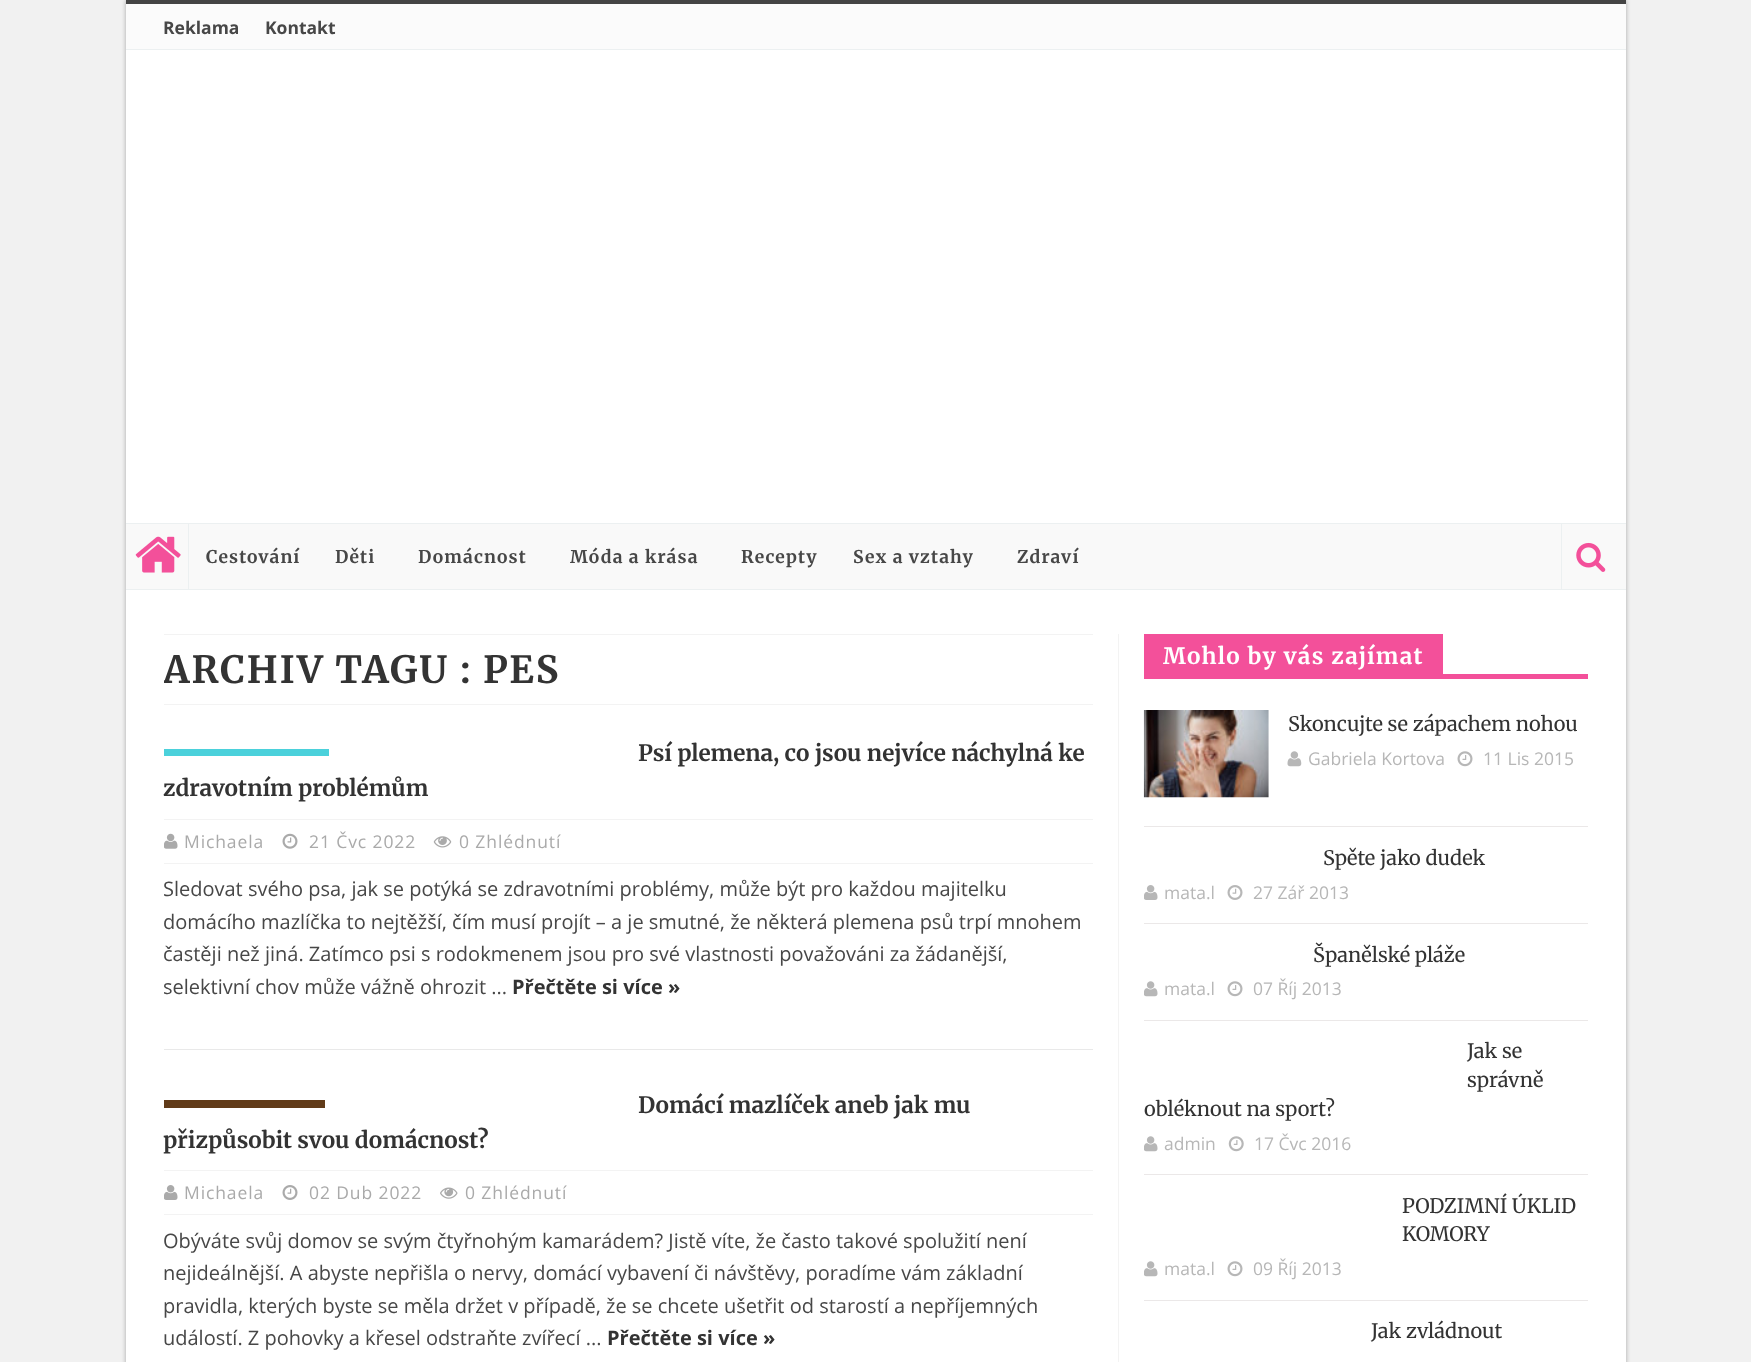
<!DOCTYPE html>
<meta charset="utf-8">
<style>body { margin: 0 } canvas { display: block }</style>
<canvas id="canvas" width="1751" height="1362"></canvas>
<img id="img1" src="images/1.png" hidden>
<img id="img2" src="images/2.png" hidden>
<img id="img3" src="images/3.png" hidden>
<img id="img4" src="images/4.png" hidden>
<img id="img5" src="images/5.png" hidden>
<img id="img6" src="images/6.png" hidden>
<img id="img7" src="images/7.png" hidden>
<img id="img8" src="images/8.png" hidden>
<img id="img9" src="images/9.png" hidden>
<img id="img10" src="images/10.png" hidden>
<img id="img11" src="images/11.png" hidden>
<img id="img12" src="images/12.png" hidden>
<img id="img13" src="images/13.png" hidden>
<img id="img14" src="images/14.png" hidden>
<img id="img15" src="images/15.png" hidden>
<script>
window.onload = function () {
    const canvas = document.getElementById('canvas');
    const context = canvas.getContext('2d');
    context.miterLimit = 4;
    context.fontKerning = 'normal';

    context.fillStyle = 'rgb(241, 241, 241)';
    context.fillRect(0, 0, 1751, 1362);
    context.fillStyle = 'rgb(164, 164, 164)';
    context.filter = 'blur(2px)';
    context.beginPath();
    context.rect(126, 0, 1500, 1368);
    context.fill();
    context.filter = 'none';
    context.fillStyle = 'rgb(255, 255, 255)';
    context.fillRect(126, 50, 1500, 1312);
    context.fillStyle = 'rgb(251, 251, 251)';
    context.fillRect(126, 4, 1500, 45);
    context.fillStyle = 'rgb(68, 68, 68)';
    context.fillRect(126, 0, 1500, 4);
    context.fillStyle = 'rgb(236, 240, 241)';
    context.fillRect(126, 49, 1500, 1);
    context.fillStyle = 'rgb(249, 249, 249)';
    context.fillRect(126, 524, 1500, 65);
    context.fillStyle = 'rgb(236, 240, 241)';
    context.fillRect(126, 523, 1500, 1);
    context.fillRect(126, 589, 1500, 1);
    context.fillRect(188, 524, 1, 65);
    context.drawImage(document.getElementById('img1'), 135, 536, 46, 37);
    context.fillRect(1561, 524, 1, 65);
    context.drawImage(document.getElementById('img2'), 1576, 542, 30, 30);
    context.fillStyle = 'rgb(243, 243, 243)';
    context.fillRect(164, 634, 929, 1);
    context.fillRect(164, 704, 929, 1);
    context.fillStyle = 'rgb(233, 233, 233)';
    context.fillRect(164, 1049, 929, 1);
    context.fillStyle = 'rgb(243, 243, 243)';
    context.fillRect(164, 819, 929, 1);
    context.fillRect(164, 863, 929, 1);
    context.drawImage(document.getElementById('img3'), 164, 833, 14, 16);
    context.drawImage(document.getElementById('img4'), 282, 833, 16, 16);
    context.drawImage(document.getElementById('img5'), 433, 836, 19, 12);
    context.fillStyle = 'rgb(75, 209, 219)';
    context.fillRect(164, 749, 165, 7);
    context.fillStyle = 'rgb(243, 243, 243)';
    context.fillRect(164, 1170, 929, 1);
    context.fillRect(164, 1214, 929, 1);
    context.drawImage(document.getElementById('img6'), 164, 1185, 14, 15);
    context.drawImage(document.getElementById('img7'), 282, 1185, 16, 15);
    context.drawImage(document.getElementById('img8'), 440, 1187, 18, 12);
    context.fillStyle = 'rgb(97, 59, 25)';
    context.fillRect(164, 1100, 161, 8);
    context.fillStyle = 'rgb(243, 243, 243)';
    context.fillRect(1118, 634, 1, 728);
    context.fillStyle = 'rgb(243, 80, 154)';
    context.fillRect(1144, 674, 444, 5);
    context.fillRect(1144, 634, 299, 40);
    context.fillStyle = 'rgb(235, 232, 232)';
    context.fillRect(1144, 826, 444, 1);
    context.drawImage(document.getElementById('img9'), 1143, 710, 126, 88);
    context.drawImage(document.getElementById('img10'), 1287, 751, 15, 16);
    context.drawImage(document.getElementById('img11'), 1457, 751, 16, 16);
    context.fillRect(1144, 923, 444, 1);
    context.drawImage(document.getElementById('img12'), 1144, 885, 14, 15);
    context.drawImage(document.getElementById('img13'), 1227, 885, 16, 15);
    context.fillRect(1144, 1020, 444, 1);
    context.drawImage(document.getElementById('img14'), 1144, 981, 14, 16);
    context.drawImage(document.getElementById('img11'), 1227, 981, 16, 16);
    context.fillRect(1144, 1174, 444, 1);
    context.drawImage(document.getElementById('img14'), 1144, 1136, 14, 16);
    context.drawImage(document.getElementById('img15'), 1228, 1136, 16, 16);
    context.fillRect(1144, 1300, 444, 1);
    context.drawImage(document.getElementById('img14'), 1144, 1261, 14, 16);
    context.drawImage(document.getElementById('img11'), 1227, 1261, 16, 16);
    context.font = 'bold 17.5px Open Sans';
    context.fillStyle = 'rgb(71, 71, 71)';
    context.fillText('Reklama', 163, 34);
    context.fillText('Kontakt', 265, 34);
    context.letterSpacing = '1.1px';
    context.font = 'bold 17.5px Merriweather';
    context.fillText('Cestování', 206, 563);
    context.fillText('Děti', 335, 563);
    context.fillText('Domácnost', 418, 563);
    context.fillText('Móda a krása', 570, 563);
    context.fillText('Recepty', 741, 563);
    context.fillText('Sex a vztahy', 853, 563);
    context.fillText('Zdraví', 1017, 563);
    context.save();
    context.beginPath();
    context.rect(164, 635, 929, 69);
    context.clip();
    context.letterSpacing = '1.9px';
    context.font = 'bold 37.5px Merriweather';
    context.fillStyle = 'rgb(51, 51, 51)';
    context.fillText('ARCHIV TAGU :', 163, 683);
    context.restore();
    context.letterSpacing = '1.9px';
    context.font = 'bold 37.5px Merriweather';
    context.fillStyle = 'rgb(51, 51, 51)';
    context.fillText('PES', 483, 683);
    context.letterSpacing = '0px';
    context.font = 'bold 22.5px Merriweather';
    context.fillText('Psí plemena, co jsou nejvíce náchylná ke', 638, 761);
    context.fillText('zdravotním problémům', 163, 796);
    context.letterSpacing = '0.9px';
    context.font = '17.5px Open Sans';
    context.fillStyle = 'rgb(170, 170, 170)';
    context.fillText('Michaela', 184, 848);
    context.fillText('21 Čvc 2022', 309, 848);
    context.fillText('0 Zhlédnutí', 459, 848);
    context.letterSpacing = '0px';
    context.font = '20px Open Sans';
    context.fillStyle = 'rgb(71, 71, 71)';
    context.fillText('Sledovat svého psa, jak se potýká se zdravotními problémy, může být pro každou majitelku', 163, 896);
    context.fillText('domácího mazlíčka to nejtěžší, čím musí projít – a je smutné, že některá plemena psů trpí mnohem', 163, 929);
    context.fillText('častěji než jiná. Zatímco psi s rodokmenem jsou pro své vlastnosti považováni za žádanější,', 163, 961);
    context.fillText('selektivní chov může vážně ohrozit ...', 163, 994);
    context.font = 'bold 20px Open Sans';
    context.fillStyle = 'rgb(51, 51, 51)';
    context.fillText('Přečtěte si více »', 512, 994);
    context.font = 'bold 22.5px Merriweather';
    context.fillText('Domácí mazlíček aneb jak mu', 638, 1113);
    context.fillText('přizpůsobit svou domácnost?', 163, 1148);
    context.letterSpacing = '0.9px';
    context.font = '17.5px Open Sans';
    context.fillStyle = 'rgb(170, 170, 170)';
    context.fillText('Michaela', 184, 1199);
    context.fillText('02 Dub 2022', 309, 1199);
    context.fillText('0 Zhlédnutí', 465, 1199);
    context.letterSpacing = '0px';
    context.font = '20px Open Sans';
    context.fillStyle = 'rgb(71, 71, 71)';
    context.fillText('Obýváte svůj domov se svým čtyřnohým kamarádem? Jistě víte, že často takové spolužití není', 163, 1248);
    context.fillText('nejideálnější. A abyste nepřišla o nervy, domácí vybavení či návštěvy, poradíme vám základní', 163, 1280);
    context.fillText('pravidla, kterých byste se měla držet v případě, že se chcete ušetřit od starostí a nepříjemných', 163, 1313);
    context.fillText('událostí. Z pohovky a křesel odstraňte zvířecí ...', 163, 1345);
    context.font = 'bold 20px Open Sans';
    context.fillStyle = 'rgb(51, 51, 51)';
    context.fillText('Přečtěte si více »', 607, 1345);
    context.letterSpacing = '1.25px';
    context.font = 'bold 22.5px Merriweather';
    context.fillStyle = 'rgb(255, 255, 255)';
    context.fillText('Mohlo by vás zajímat', 1163, 664);
    context.letterSpacing = '0px';
    context.font = '20px Merriweather';
    context.fillStyle = 'rgb(51, 51, 51)';
    context.fillText('Skoncujte se zápachem nohou', 1288, 731);
    context.font = '17.5px Open Sans';
    context.fillStyle = 'rgb(183, 183, 183)';
    context.fillText('Gabriela Kortova', 1308, 765);
    context.fillText('11 Lis 2015', 1483, 765);
    context.font = '20px Merriweather';
    context.fillStyle = 'rgb(51, 51, 51)';
    context.fillText('Spěte jako dudek', 1323, 865);
    context.font = '17.5px Open Sans';
    context.fillStyle = 'rgb(183, 183, 183)';
    context.fillText('mata.l', 1164, 899);
    context.fillText('27 Zář 2013', 1253, 899);
    context.font = '20px Merriweather';
    context.fillStyle = 'rgb(51, 51, 51)';
    context.fillText('Španělské pláže', 1313, 962);
    context.font = '17.5px Open Sans';
    context.fillStyle = 'rgb(183, 183, 183)';
    context.fillText('mata.l', 1164, 995);
    context.fillText('07 Říj 2013', 1253, 995);
    context.font = '20px Merriweather';
    context.fillStyle = 'rgb(51, 51, 51)';
    context.fillText('Jak se', 1467, 1058);
    context.fillText('správně', 1467, 1087);
    context.fillText('obléknout na sport?', 1144, 1116);
    context.font = '17.5px Open Sans';
    context.fillStyle = 'rgb(183, 183, 183)';
    context.fillText('admin', 1164, 1150);
    context.fillText('17 Čvc 2016', 1254, 1150);
    context.font = '20px Merriweather';
    context.fillStyle = 'rgb(51, 51, 51)';
    context.fillText('PODZIMNÍ ÚKLID', 1402, 1213);
    context.fillText('KOMORY', 1402, 1241);
    context.font = '17.5px Open Sans';
    context.fillStyle = 'rgb(183, 183, 183)';
    context.fillText('mata.l', 1164, 1275);
    context.fillText('09 Říj 2013', 1253, 1275);
    context.font = '20px Merriweather';
    context.fillStyle = 'rgb(51, 51, 51)';
    context.fillText('Jak zvládnout', 1371, 1338);
};
</script>
